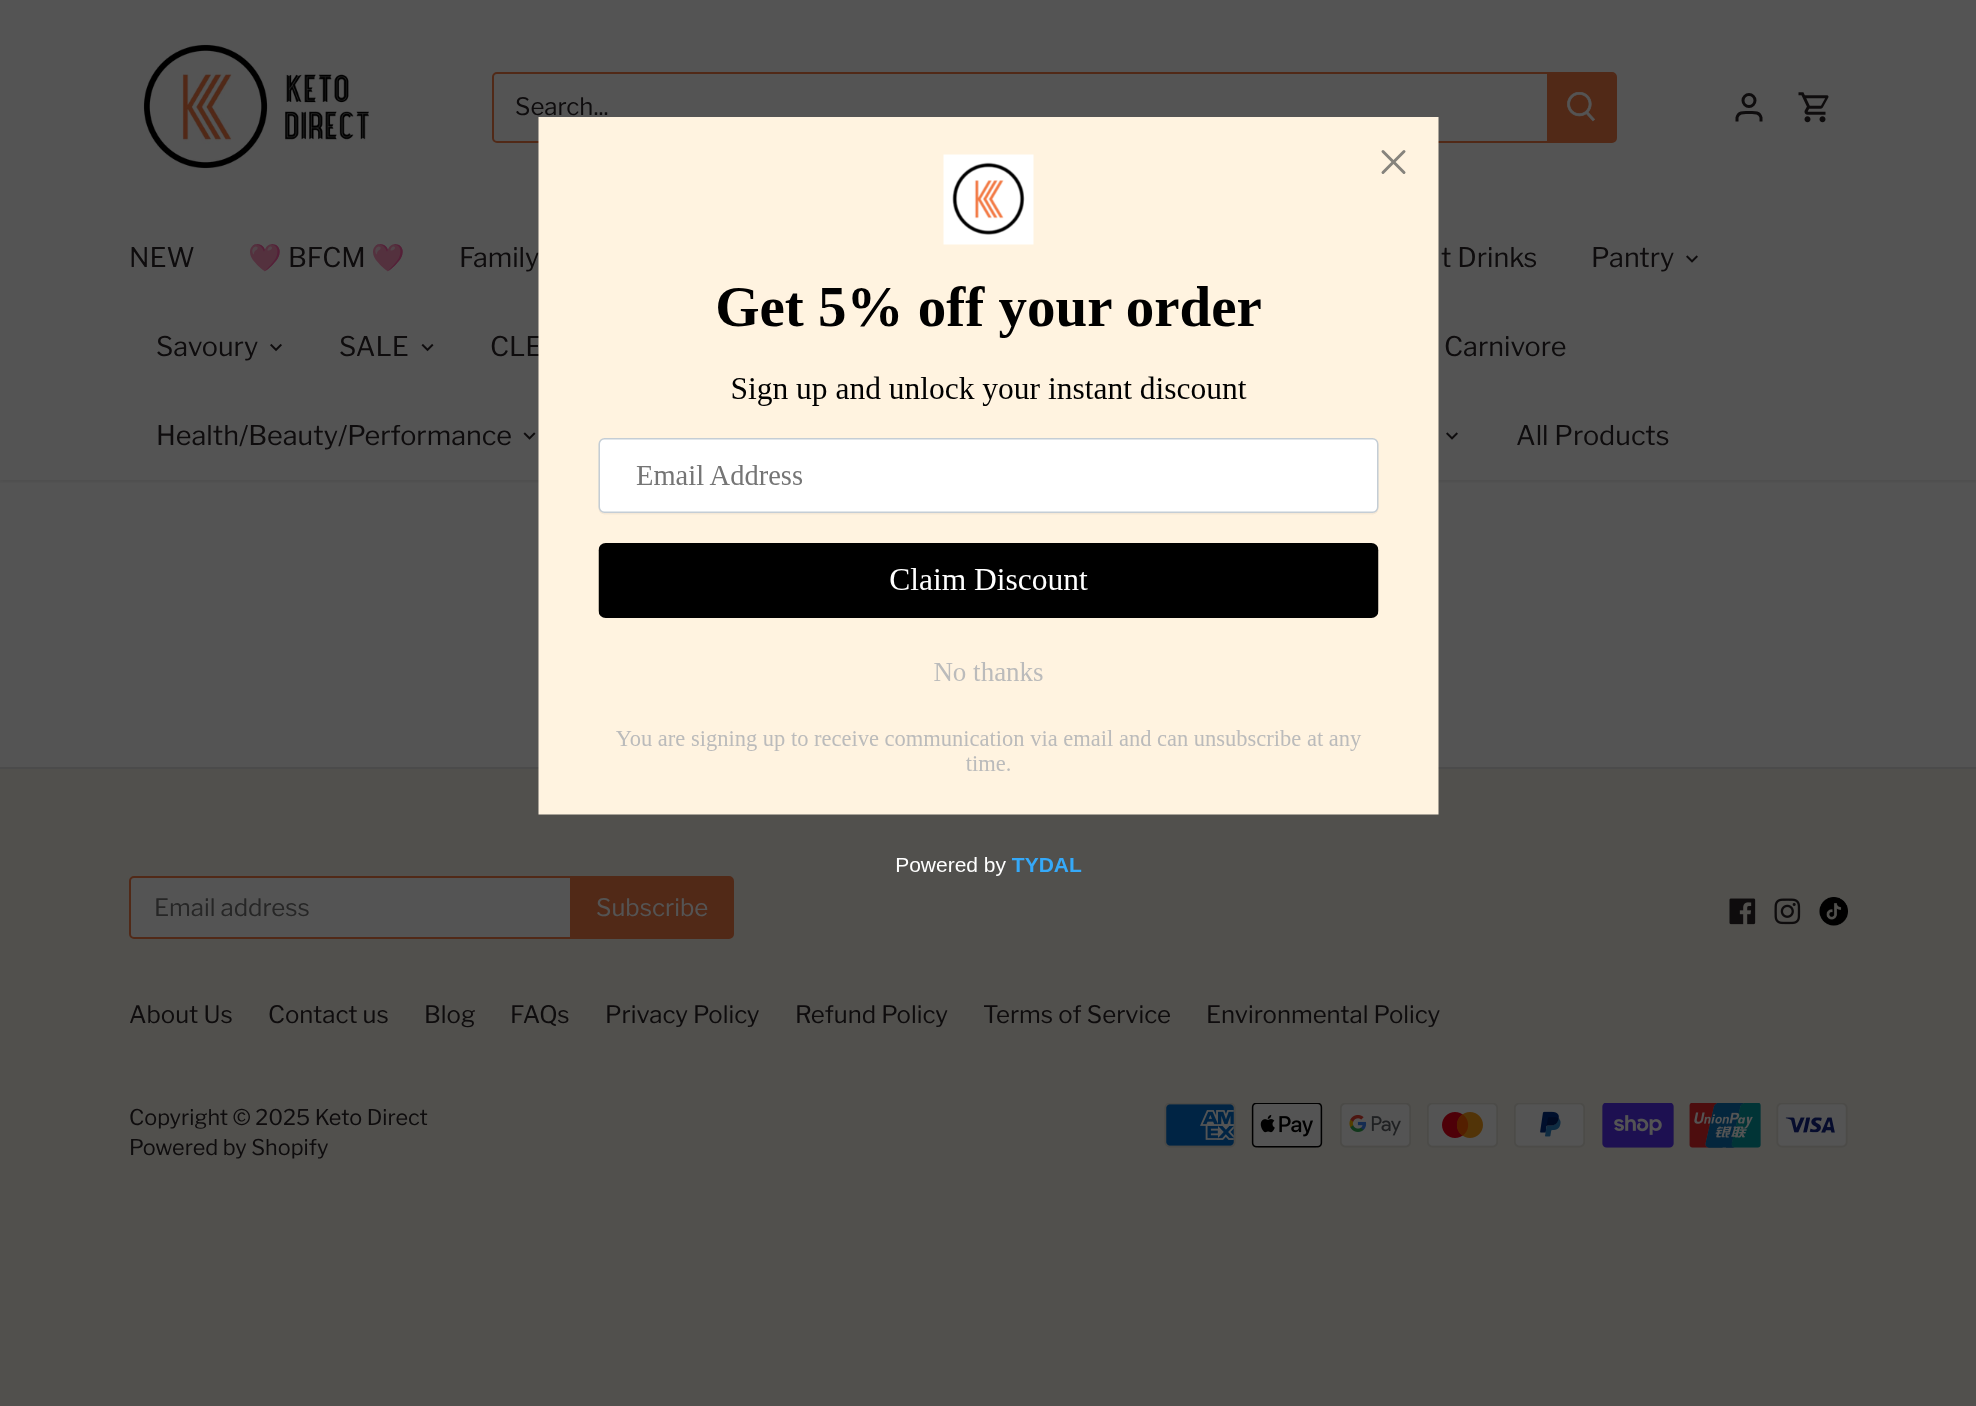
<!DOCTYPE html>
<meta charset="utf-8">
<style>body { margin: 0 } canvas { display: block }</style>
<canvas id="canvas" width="1976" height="1406"></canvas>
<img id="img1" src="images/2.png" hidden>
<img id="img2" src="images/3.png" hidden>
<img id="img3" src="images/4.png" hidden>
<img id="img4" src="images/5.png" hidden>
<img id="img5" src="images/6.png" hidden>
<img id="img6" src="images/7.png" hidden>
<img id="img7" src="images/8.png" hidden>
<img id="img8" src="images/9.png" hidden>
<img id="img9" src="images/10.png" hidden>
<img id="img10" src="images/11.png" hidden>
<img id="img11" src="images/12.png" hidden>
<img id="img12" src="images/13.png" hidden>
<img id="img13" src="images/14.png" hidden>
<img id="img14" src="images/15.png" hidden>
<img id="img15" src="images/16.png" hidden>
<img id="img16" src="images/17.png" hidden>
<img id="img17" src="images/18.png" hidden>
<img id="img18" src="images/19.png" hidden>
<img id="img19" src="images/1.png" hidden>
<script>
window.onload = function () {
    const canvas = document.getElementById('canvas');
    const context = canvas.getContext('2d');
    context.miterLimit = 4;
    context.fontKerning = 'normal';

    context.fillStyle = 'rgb(244, 242, 233)';
    context.fillRect(0, 0, 1976, 1406);
    context.fillStyle = 'rgb(255, 255, 255)';
    context.fillRect(0, 0, 1976, 767);
    context.save();
    context.beginPath();
    context.rect(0, 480, 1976, 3);
    context.clip();
    context.fillStyle = 'rgba(0, 0, 0, 0.08)';
    context.filter = 'blur(2px)';
    context.beginPath();
    context.rect(-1, -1, 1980, 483);
    context.fill();
    context.filter = 'none';
    context.restore();
    context.drawImage(document.getElementById('img1'), 143, 44, 226, 125);
    context.beginPath();
    context.roundRect(493, 73, 1123, 69, 4);
    context.strokeStyle = 'rgb(245, 125, 72)';
    context.lineWidth = 2;
    context.stroke();
    context.beginPath();
    context.roundRect(494, 74, 1054, 67, [5, 0, 0, 5]);
    context.fill();
    context.fillStyle = 'rgb(245, 125, 72)';
    context.beginPath();
    context.roundRect(1547, 74, 69, 67, [0, 3, 3, 0]);
    context.fill();
    context.drawImage(document.getElementById('img2'), 1567, 92, 28, 30);
    context.beginPath();
    context.arc(1749, 100.5, 6, 0, 2 * Math.PI);
    context.strokeStyle = 'rgb(44, 37, 40)';
    context.lineWidth = 3;
    context.stroke();
    context.beginPath();
    context.moveTo(1761, 121.5);
    context.lineTo(1761, 117.5);
    context.bezierCurveTo(1759.5, 111.5, 1753.5, 112.5, 1749, 112.5);
    context.bezierCurveTo(1744.5, 112.5, 1738.5, 111.5, 1737, 117.5);
    context.lineTo(1737, 121.5);
    context.stroke();
    context.drawImage(document.getElementById('img3'), 1798, 92, 31, 31);
    context.drawImage(document.getElementById('img4'), 1686, 255, 12, 8);
    context.drawImage(document.getElementById('img5'), 270, 343, 12, 9);
    context.drawImage(document.getElementById('img6'), 421, 343, 13, 9);
    context.drawImage(document.getElementById('img7'), 523, 432, 13, 8);
    context.drawImage(document.getElementById('img4'), 1446, 432, 12, 8);
    context.fillStyle = 'rgb(226, 226, 226)';
    context.fillRect(0, 767, 1976, 2);
    context.fillStyle = 'rgb(255, 255, 255)';
    context.beginPath();
    context.roundRect(130, 877, 601, 61, 4);
    context.fill();
    context.strokeStyle = 'rgb(245, 125, 72)';
    context.lineWidth = 2;
    context.stroke();
    context.fillStyle = 'rgb(245, 125, 72)';
    context.beginPath();
    context.roundRect(571, 877, 162, 61, [0, 4, 4, 0]);
    context.fill();
    context.stroke();
    context.drawImage(document.getElementById('img8'), 1729, 898, 27, 27);
    context.drawImage(document.getElementById('img9'), 1774, 898, 27, 27);
    context.drawImage(document.getElementById('img10'), 1819, 897, 29, 29);
    context.drawImage(document.getElementById('img11'), 1164, 1103, 72, 45);
    context.drawImage(document.getElementById('img12'), 1251, 1103, 72, 45);
    context.drawImage(document.getElementById('img13'), 1340, 1103, 71, 45);
    context.drawImage(document.getElementById('img14'), 1427, 1103, 71, 45);
    context.drawImage(document.getElementById('img15'), 1514, 1103, 71, 45);
    context.drawImage(document.getElementById('img16'), 1602, 1103, 72, 45);
    context.drawImage(document.getElementById('img17'), 1689, 1103, 72, 45);
    context.drawImage(document.getElementById('img18'), 1776, 1103, 72, 45);
    context.fillStyle = 'rgb(245, 245, 245)';
    context.fillRect(1974, 1404, 2, 2);
    context.font = '24px Libre Franklin';
    context.fillStyle = 'rgb(44, 37, 40)';
    context.fillText('Search...', 515, 115);
    context.font = '27px Libre Franklin';
    context.fillText('NEW', 129, 267);
    context.font = '27px Noto Color Emoji';
    context.fillText('🩷', 248, 267);
    context.font = '27px Libre Franklin';
    context.fillText('BFCM', 288, 267);
    context.font = '27px Noto Color Emoji';
    context.fillText('🩷', 371, 267);
    context.font = '27px Libre Franklin';
    context.fillText('Family', 459, 267);
    context.fillText('t Drinks', 1441, 267);
    context.fillText('Pantry', 1591, 267);
    context.fillText('Savoury', 156, 356);
    context.fillText('SALE', 339, 356);
    context.fillText('CLE', 490, 356);
    context.fillText('Carnivore', 1444, 356);
    context.fillText('Health/Beauty/Performance', 156, 445);
    context.fillText('All Products', 1516, 445);
    context.font = '24px Libre Franklin';
    context.fillStyle = 'rgb(117, 117, 117)';
    context.fillText('Email address', 154, 916);
    context.fillStyle = 'rgb(255, 255, 255)';
    context.fillText('Subscribe', 596, 916);
    context.fillStyle = 'rgb(44, 37, 40)';
    context.fillText('About Us', 129, 1023);
    context.fillText('Contact us', 268, 1023);
    context.fillText('Blog', 424, 1023);
    context.fillText('FAQs', 510, 1023);
    context.fillText('Privacy Policy', 605, 1023);
    context.fillText('Refund Policy', 795, 1023);
    context.fillText('Terms of Service', 983, 1023);
    context.fillText('Environmental Policy', 1206, 1023);
    context.font = '21.6px Libre Franklin';
    context.fillText('Copyright © 2025 Keto Direct', 129, 1125);
    context.fillText('Powered by Shopify', 129, 1155);
    context.drawImage(document.getElementById('img19'), 0, 0, 1976, 1406);
};
</script>
